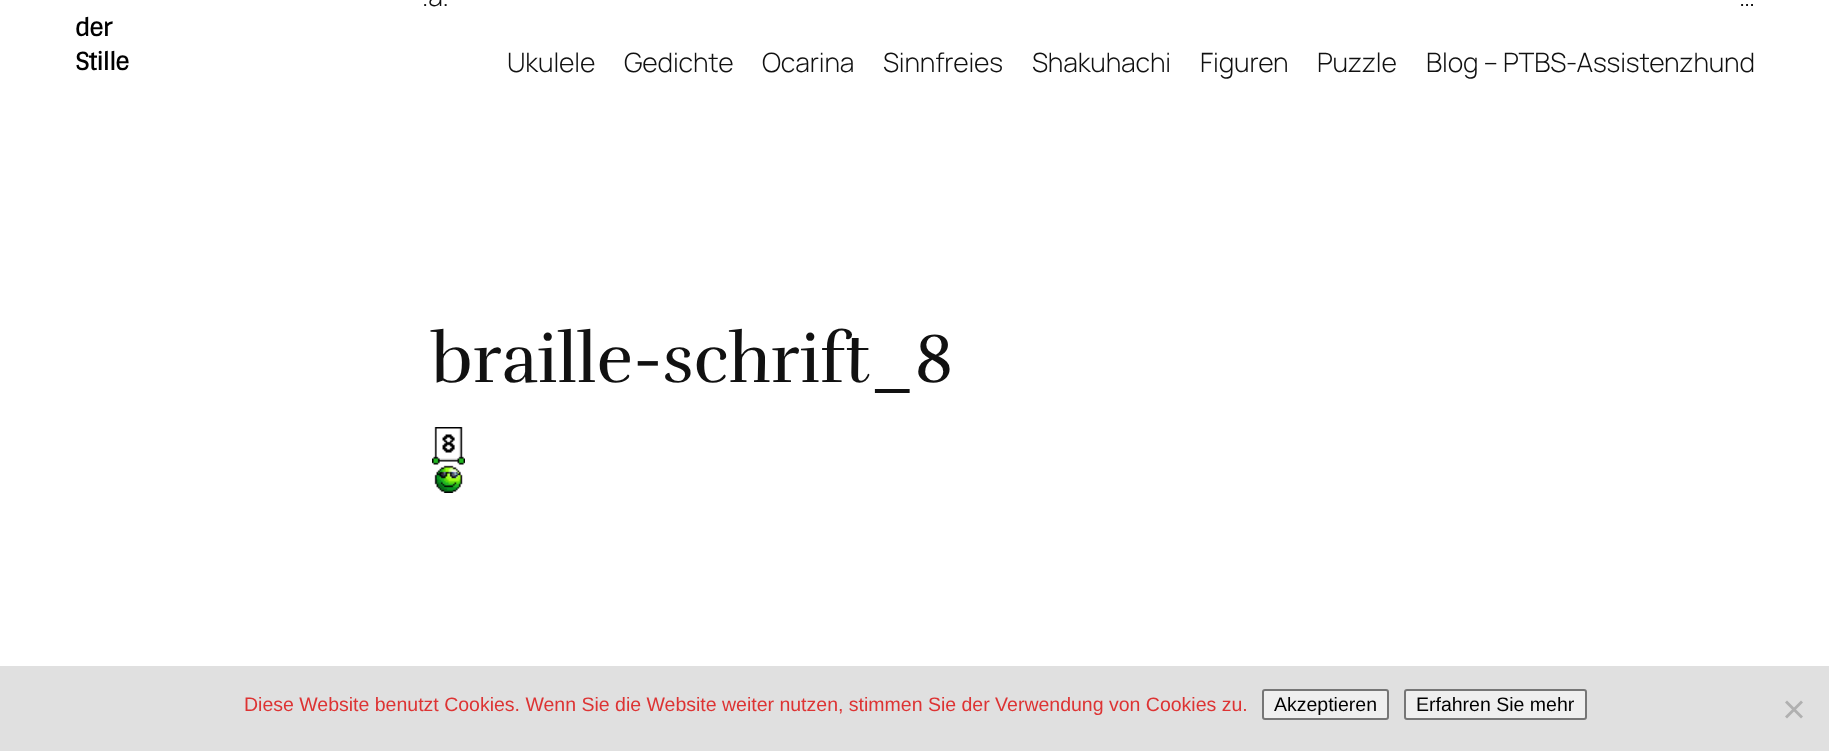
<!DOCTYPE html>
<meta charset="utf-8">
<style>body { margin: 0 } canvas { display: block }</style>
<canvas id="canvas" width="1829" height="751"></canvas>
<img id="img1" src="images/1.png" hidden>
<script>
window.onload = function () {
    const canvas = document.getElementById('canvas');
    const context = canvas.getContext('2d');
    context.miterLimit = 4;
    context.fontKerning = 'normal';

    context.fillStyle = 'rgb(255, 255, 255)';
    context.fillRect(0, 0, 1829, 751);
    context.drawImage(document.getElementById('img1'), 432, 427, 33, 66);
    context.fillStyle = 'rgb(224, 224, 224)';
    context.fillRect(0, 666, 1829, 85);
    context.fillStyle = 'rgb(239, 239, 239)';
    context.beginPath();
    context.roundRect(1263, 690, 125, 29, 2);
    context.fill();
    context.strokeStyle = 'rgb(118, 118, 118)';
    context.lineWidth = 2;
    context.stroke();
    context.beginPath();
    context.roundRect(1405, 690, 181, 29, 2);
    context.fill();
    context.stroke();
    context.fillStyle = 'rgb(176, 176, 176)';
    context.beginPath();
    context.moveTo(1801, 700.5);
    context.lineTo(1803, 702.5);
    context.lineTo(1787, 718.5);
    context.lineTo(1785, 716.5);
    context.closePath();
    context.fill();
    context.beginPath();
    context.moveTo(1785, 702.5);
    context.lineTo(1787, 700.5);
    context.lineTo(1803, 716.5);
    context.lineTo(1801, 718.5);
    context.closePath();
    context.fill();
    context.letterSpacing = '-0.75px';
    context.font = 'bold 24px Sintony';
    context.fillStyle = 'rgb(0, 0, 0)';
    context.fillText('der', 75, 36);
    context.fillText('Stille', 75, 70);
    context.letterSpacing = '-0.15px';
    context.font = '300 26.6px Manrope';
    context.fillStyle = 'rgb(17, 17, 17)';
    context.fillText('.a.', 422, 6);
    context.fillText('…', 1739, 6);
    context.fillText('Ukulele', 507, 72);
    context.fillText('Gedichte', 624, 72);
    context.fillText('Ocarina', 762, 72);
    context.fillText('Sinnfreies', 883, 72);
    context.fillText('Shakuhachi', 1032, 72);
    context.fillText('Figuren', 1200, 72);
    context.fillText('Puzzle', 1317, 72);
    context.fillText('Blog – PTBS-Assistenzhund', 1426, 72);
    context.font = '69.5px Rufina';
    context.fillText('braille-schrift_8', 431, 382);
    context.letterSpacing = '0px';
    context.font = '19.5px Liberation Sans';
    context.fillStyle = 'rgb(221, 51, 51)';
    context.fillText('Diese Website benutzt Cookies. Wenn Sie die Website weiter nutzen, stimmen Sie der Verwendung von Cookies zu.', 244, 711);
    context.fillStyle = 'rgb(0, 0, 0)';
    context.fillText('Akzeptieren', 1274, 711);
    context.fillText('Erfahren Sie mehr', 1416, 711);
};
</script>
